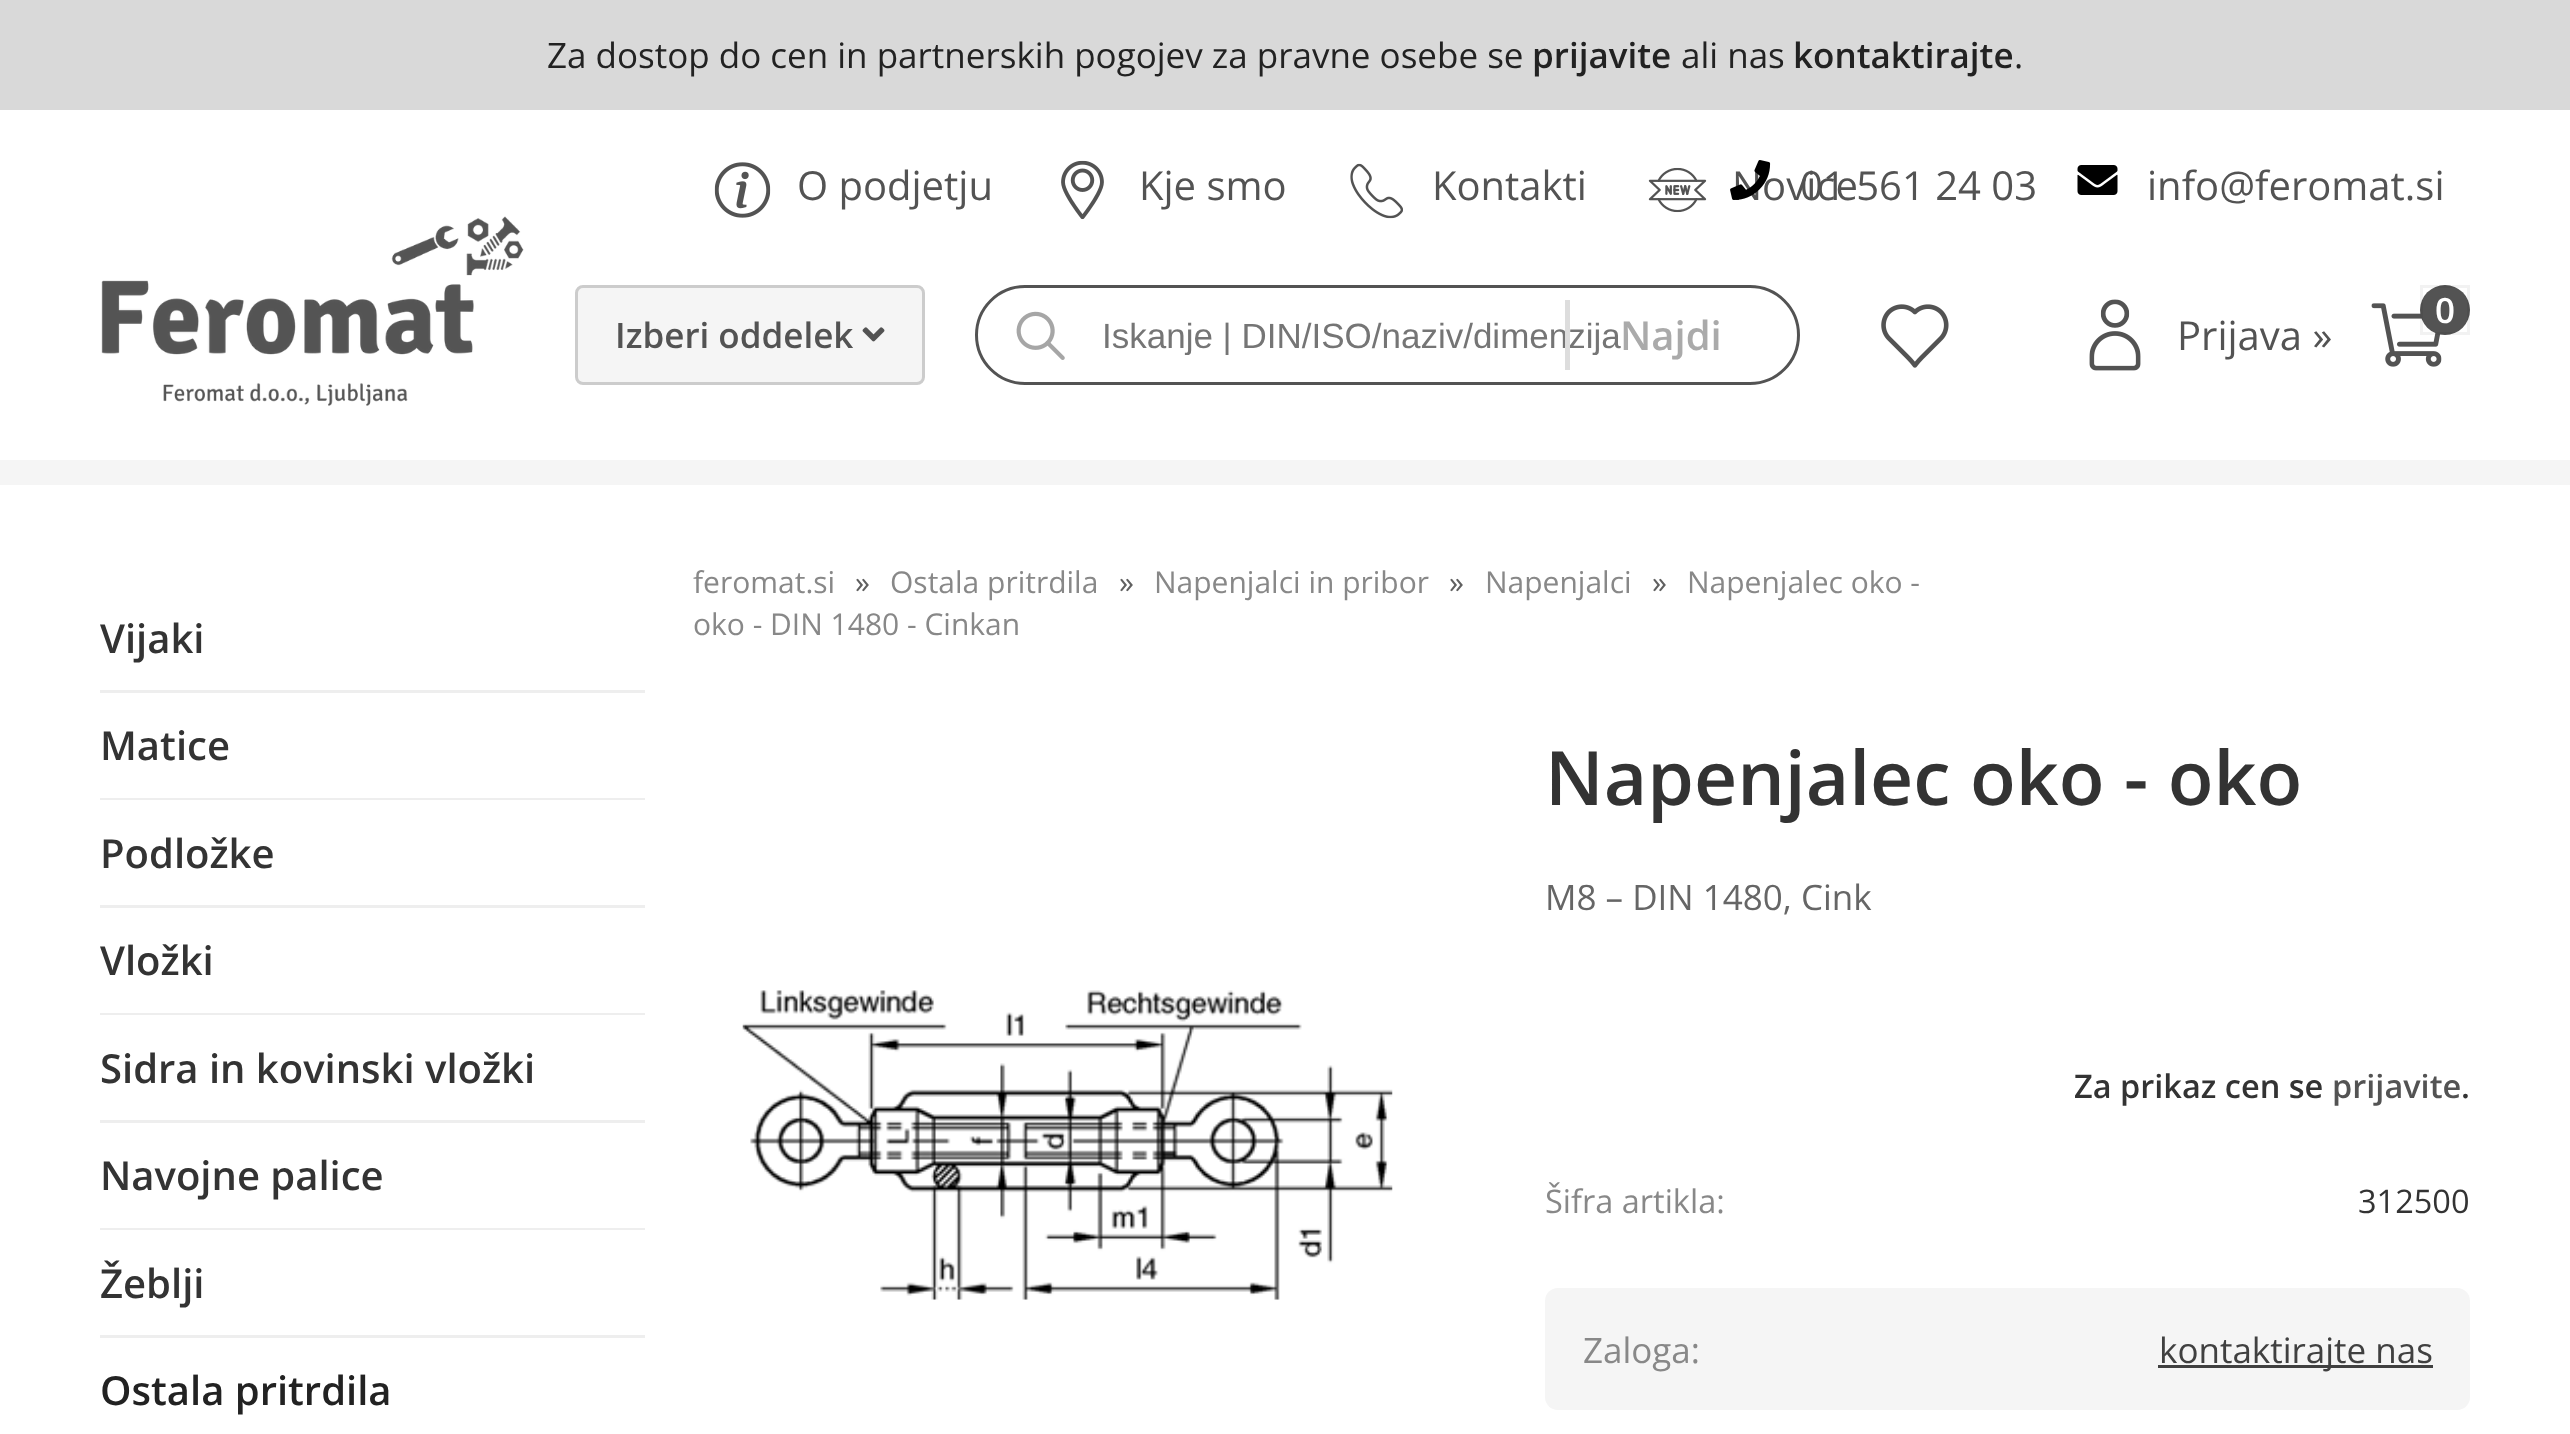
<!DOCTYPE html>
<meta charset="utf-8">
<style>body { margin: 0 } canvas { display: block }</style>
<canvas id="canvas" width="2570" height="1434"></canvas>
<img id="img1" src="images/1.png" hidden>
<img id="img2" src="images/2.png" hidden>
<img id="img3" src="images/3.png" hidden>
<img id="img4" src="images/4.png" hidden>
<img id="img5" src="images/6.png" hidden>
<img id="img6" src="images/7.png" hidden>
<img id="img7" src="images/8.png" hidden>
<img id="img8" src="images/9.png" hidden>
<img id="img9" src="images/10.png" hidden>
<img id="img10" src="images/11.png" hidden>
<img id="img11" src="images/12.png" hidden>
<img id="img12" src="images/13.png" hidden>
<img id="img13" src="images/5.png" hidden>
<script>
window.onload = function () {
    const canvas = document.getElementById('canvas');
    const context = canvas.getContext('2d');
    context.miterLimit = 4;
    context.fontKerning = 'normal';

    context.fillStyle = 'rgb(217, 217, 217)';
    context.fillRect(0, 0, 2570, 1434);
    context.fillStyle = 'rgb(255, 255, 255)';
    context.fillRect(0, 110, 2570, 350);
    context.fillStyle = 'rgb(245, 245, 245)';
    context.fillRect(0, 460, 2570, 25);
    context.drawImage(document.getElementById('img1'), 714, 162, 57, 56);
    context.drawImage(document.getElementById('img2'), 1061, 160, 43, 60);
    context.drawImage(document.getElementById('img3'), 1350, 163, 53, 56);
    context.drawImage(document.getElementById('img4'), 1648, 167, 59, 46);
    context.drawImage(document.getElementById('img5'), 2077, 165, 41, 30);
    context.drawImage(document.getElementById('img6'), 101, 216, 423, 190);
    context.beginPath();
    context.roundRect(576.5, 286.5, 347, 97, 6.5);
    context.fill();
    context.strokeStyle = 'rgb(204, 204, 204)';
    context.lineWidth = 3;
    context.stroke();
    context.drawImage(document.getElementById('img7'), 862, 327, 23, 15);
    context.drawImage(document.getElementById('img8'), 1016, 311, 49, 49);
    context.beginPath();
    context.roundRect(976.5, 286.5, 822, 97, 48.5);
    context.strokeStyle = 'rgb(83, 83, 83)';
    context.stroke();
    context.drawImage(document.getElementById('img9'), 1881, 304, 68, 64);
    context.drawImage(document.getElementById('img10'), 2089, 299, 52, 72);
    context.drawImage(document.getElementById('img11'), 2371, 303, 73, 64);
    context.fillStyle = 'rgb(83, 83, 83)';
    context.beginPath();
    context.arc(2445, 310, 25, 0, 2 * Math.PI);
    context.fill();
    context.strokeStyle = 'rgba(0, 0, 0, 0.05)';
    context.strokeRect(2421.5, 286.5, 47, 47);
    context.fillStyle = 'rgb(255, 255, 255)';
    context.fillRect(0, 485, 2570, 949);
    context.fillStyle = 'rgb(238, 238, 238)';
    context.fillRect(100, 690, 545, 3);
    context.fillRect(100, 798, 545, 2);
    context.fillRect(100, 905, 545, 3);
    context.fillRect(100, 1013, 545, 2);
    context.fillRect(100, 1120, 545, 3);
    context.fillRect(100, 1228, 545, 2);
    context.fillRect(100, 1335, 545, 3);
    context.drawImage(document.getElementById('img12'), 742, 990, 651, 310);
    context.fillStyle = 'rgb(245, 245, 245)';
    context.beginPath();
    context.roundRect(1545, 1288, 925, 122, 13);
    context.fill();
    context.fillStyle = 'rgb(64, 64, 64)';
    context.fillRect(2158, 1365, 275, 3);
    context.font = '35px Open Sans';
    context.fillStyle = 'rgb(34, 34, 34)';
    context.fillText('Za dostop do cen in partnerskih pogojev za pravne osebe se', 547, 68);
    context.font = '600 35px Open Sans';
    context.fillText('prijavite', 1532, 68);
    context.font = '35px Open Sans';
    context.fillText('ali nas', 1681, 68);
    context.font = '600 35px Open Sans';
    context.fillText('kontaktirajte', 1793, 68);
    context.font = '35px Open Sans';
    context.fillText('.', 2014, 68);
    context.font = '40px Open Sans';
    context.fillStyle = 'rgb(83, 83, 83)';
    context.fillText('O podjetju', 797, 200);
    context.fillText('Kje smo', 1139, 200);
    context.fillText('Kontakti', 1432, 200);
    context.fillText('Novice', 1732, 200);
    context.drawImage(document.getElementById('img13'), 1730, 160, 41, 40);
    context.fillText('01 561 24 03', 1800, 200);
    context.fillText('info@feromat.si', 2147, 200);
    context.font = '600 35px Open Sans';
    context.fillText('Izberi oddelek', 615, 348);
    context.save();
    context.beginPath();
    context.rect(1103, 315, 570, 40);
    context.clip();
    context.font = '35px Liberation Sans';
    context.fillStyle = 'rgb(117, 117, 117)';
    context.fillText('Iskanje | DIN/ISO/naziv/dimenzija', 1102, 348);
    context.restore();
    context.fillStyle = 'rgb(221, 221, 221)';
    context.fillRect(1565, 300, 5, 70);
    context.font = '600 40px Open Sans';
    context.fillStyle = 'rgb(170, 170, 170)';
    context.fillText('Najdi', 1620, 350);
    context.font = '40px Open Sans';
    context.fillStyle = 'rgb(83, 83, 83)';
    context.fillText('Prijava »', 2177, 350);
    context.font = '600 35px Open Sans';
    context.fillStyle = 'rgb(255, 255, 255)';
    context.fillText('0', 2435, 323);
    context.font = '600 40px Open Sans';
    context.fillStyle = 'rgb(51, 51, 51)';
    context.fillText('Vijaki', 100, 653);
    context.fillText('Matice', 100, 760);
    context.fillText('Podložke', 100, 868);
    context.fillText('Vložki', 100, 975);
    context.fillText('Sidra in kovinski vložki', 100, 1083);
    context.fillText('Navojne palice', 100, 1190);
    context.fillText('Žeblji', 100, 1298);
    context.fillStyle = 'rgb(34, 34, 34)';
    context.fillText('Ostala pritrdila', 100, 1405);
    context.font = '30px Open Sans';
    context.fillStyle = 'rgb(136, 136, 136)';
    context.fillText('feromat.si', 693, 593);
    context.fillStyle = 'rgb(96, 96, 96)';
    context.fillText('»', 855, 593);
    context.fillStyle = 'rgb(136, 136, 136)';
    context.fillText('Ostala pritrdila', 890, 593);
    context.fillStyle = 'rgb(96, 96, 96)';
    context.fillText('»', 1119, 593);
    context.fillStyle = 'rgb(136, 136, 136)';
    context.fillText('Napenjalci in pribor', 1154, 593);
    context.fillStyle = 'rgb(96, 96, 96)';
    context.fillText('»', 1449, 593);
    context.fillStyle = 'rgb(136, 136, 136)';
    context.fillText('Napenjalci', 1485, 593);
    context.fillStyle = 'rgb(96, 96, 96)';
    context.fillText('»', 1652, 593);
    context.fillStyle = 'rgb(136, 136, 136)';
    context.fillText('Napenjalec oko -', 1687, 593);
    context.fillText('oko - DIN 1480 - Cinkan', 693, 635);
    context.font = '600 75px Open Sans';
    context.fillStyle = 'rgb(51, 51, 51)';
    context.fillText('Napenjalec oko - oko', 1545, 805);
    context.font = '35px Open Sans';
    context.fillStyle = 'rgb(102, 102, 102)';
    context.fillText('M8 – DIN 1480, Cink', 1545, 910);
    context.font = '600 32.5px Open Sans';
    context.fillStyle = 'rgb(51, 51, 51)';
    context.fillText('Za prikaz cen se', 2074, 1098);
    context.fillStyle = 'rgb(83, 83, 83)';
    context.fillText('prijavite', 2332, 1098);
    context.fillStyle = 'rgb(51, 51, 51)';
    context.fillText('.', 2461, 1098);
    context.font = '32.5px Open Sans';
    context.fillStyle = 'rgb(136, 136, 136)';
    context.fillText('Šifra artikla:', 1545, 1213);
    context.fillStyle = 'rgb(51, 51, 51)';
    context.fillText('312500', 2358, 1213);
    context.font = '35px Open Sans';
    context.fillStyle = 'rgb(136, 136, 136)';
    context.fillText('Zaloga:', 1583, 1363);
    context.fillStyle = 'rgb(64, 64, 64)';
    context.fillText('kontaktirajte nas', 2159, 1363);
};
</script>
